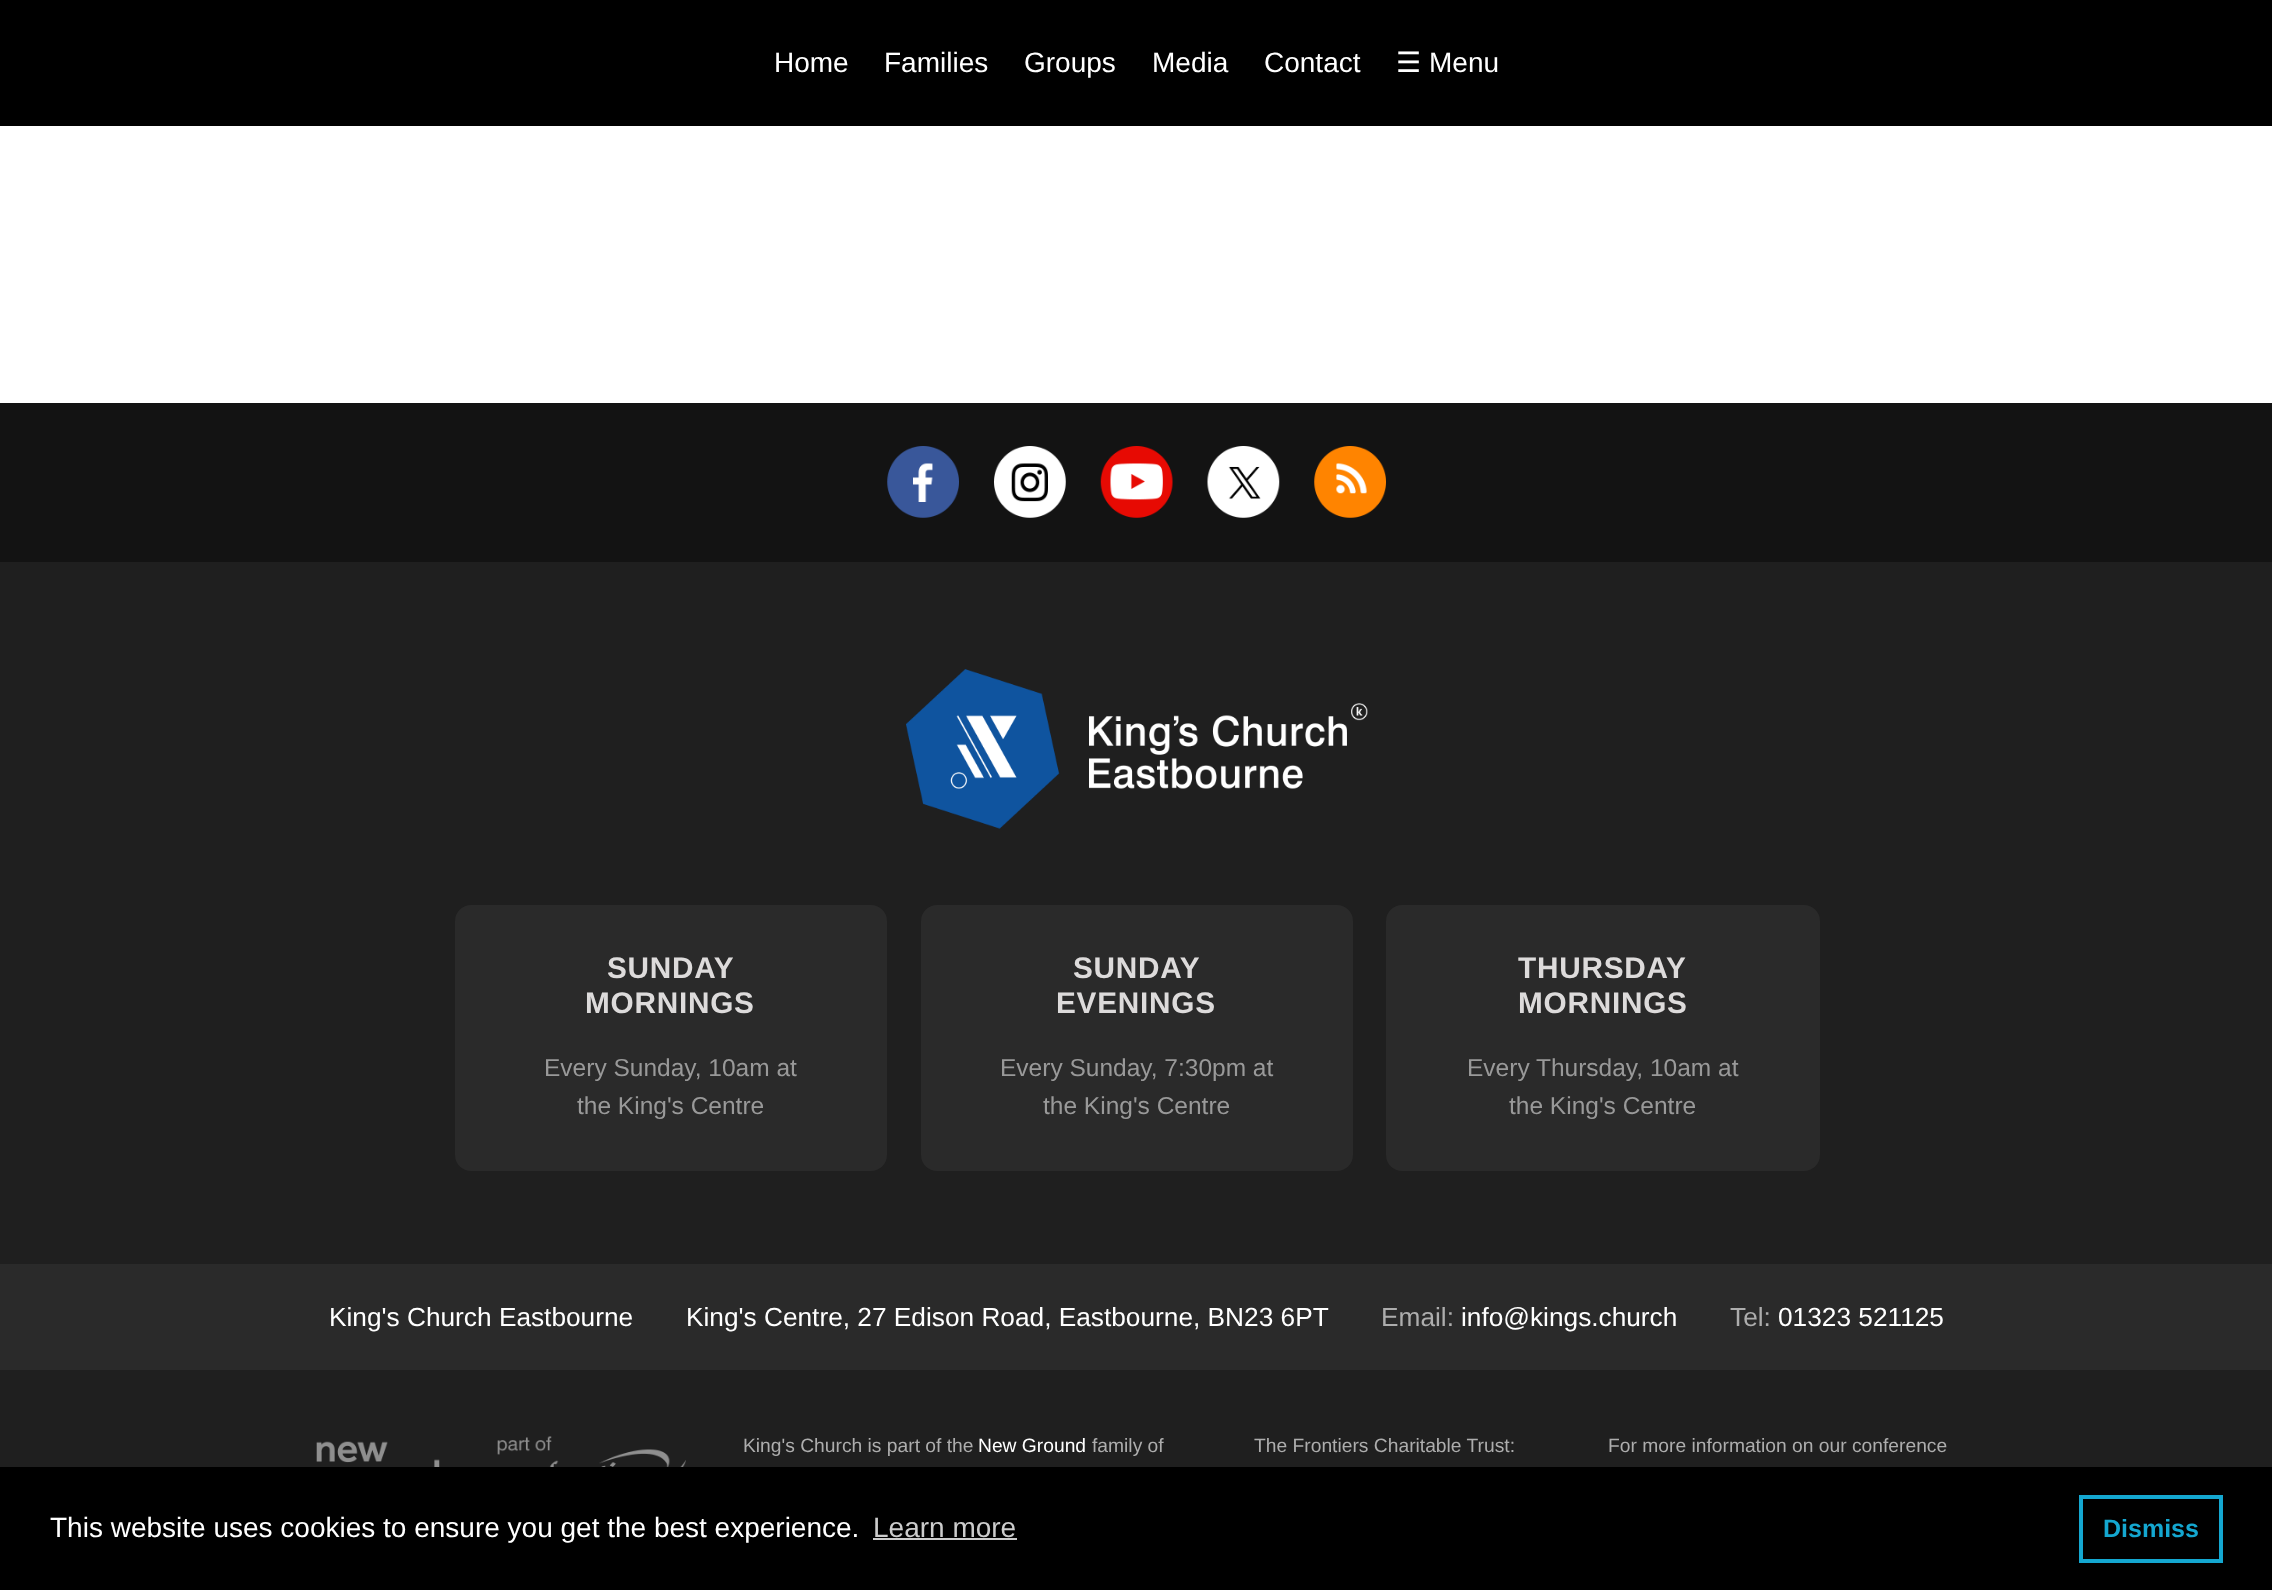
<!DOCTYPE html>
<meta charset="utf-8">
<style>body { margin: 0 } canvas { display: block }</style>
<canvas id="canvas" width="2272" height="1590"></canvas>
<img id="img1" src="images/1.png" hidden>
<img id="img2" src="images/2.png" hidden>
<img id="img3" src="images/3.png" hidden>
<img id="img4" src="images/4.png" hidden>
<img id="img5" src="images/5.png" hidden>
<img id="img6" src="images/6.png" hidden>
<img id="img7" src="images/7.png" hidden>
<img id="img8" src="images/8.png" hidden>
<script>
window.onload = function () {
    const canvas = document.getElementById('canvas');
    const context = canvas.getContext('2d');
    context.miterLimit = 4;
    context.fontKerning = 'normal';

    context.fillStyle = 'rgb(255, 255, 255)';
    context.fillRect(0, 0, 2272, 1590);
    context.fillStyle = 'rgb(0, 0, 0)';
    context.fillRect(0, 0, 2272, 126);
    context.fillStyle = 'rgb(19, 19, 19)';
    context.fillRect(0, 403, 2272, 159);
    context.drawImage(document.getElementById('img1'), 887, 446, 72, 72);
    context.drawImage(document.getElementById('img2'), 994, 446, 72, 72);
    context.drawImage(document.getElementById('img3'), 1100, 446, 73, 72);
    context.drawImage(document.getElementById('img4'), 1207, 446, 73, 72);
    context.drawImage(document.getElementById('img5'), 1314, 446, 72, 72);
    context.fillStyle = 'rgb(31, 31, 31)';
    context.fillRect(0, 562, 2272, 702);
    context.drawImage(document.getElementById('img6'), 906, 669, 462, 160);
    context.fillStyle = 'rgb(42, 42, 42)';
    context.beginPath();
    context.roundRect(455, 905, 432, 266, 16);
    context.fill();
    context.beginPath();
    context.roundRect(921, 905, 432, 266, 16);
    context.fill();
    context.beginPath();
    context.roundRect(1386, 905, 434, 266, 16);
    context.fill();
    context.fillRect(0, 1264, 2272, 106);
    context.fillStyle = 'rgb(31, 31, 31)';
    context.fillRect(0, 1370, 2272, 97);
    context.drawImage(document.getElementById('img7'), 316, 1441, 124, 26);
    context.drawImage(document.getElementById('img8'), 497, 1436, 189, 31);
    context.fillStyle = 'rgb(0, 0, 0)';
    context.fillRect(0, 1467, 2272, 123);
    context.fillStyle = 'rgb(204, 204, 204)';
    context.fillRect(873, 1538, 144, 2);
    context.strokeStyle = 'rgb(20, 167, 208)';
    context.lineWidth = 4;
    context.strokeRect(2081, 1497, 140, 64);
    context.font = '28px Liberation Sans';
    context.fillStyle = 'rgb(255, 255, 255)';
    context.fillText('Home', 774, 72);
    context.fillText('Families', 884, 72);
    context.fillText('Groups', 1024, 72);
    context.fillText('Media', 1152, 72);
    context.fillText('Contact', 1264, 72);
    context.font = '28px DejaVu Sans';
    context.fillText('☰', 1396, 72);
    context.font = '28px Liberation Sans';
    context.fillText('Menu', 1429, 72);
    context.letterSpacing = '0.75px';
    context.font = 'bold 29.75px Liberation Sans';
    context.fillStyle = 'rgb(221, 219, 219)';
    context.fillText('SUNDAY', 607, 978);
    context.fillText('MORNINGS', 585, 1013);
    context.letterSpacing = '0px';
    context.font = '24.5px Liberation Sans';
    context.fillStyle = 'rgb(153, 153, 153)';
    context.fillText('Every Sunday, 10am at', 544, 1076);
    context.fillText('the King\'s Centre', 577, 1114);
    context.letterSpacing = '0.75px';
    context.font = 'bold 29.75px Liberation Sans';
    context.fillStyle = 'rgb(221, 219, 219)';
    context.fillText('SUNDAY', 1073, 978);
    context.fillText('EVENINGS', 1056, 1013);
    context.letterSpacing = '0px';
    context.font = '24.5px Liberation Sans';
    context.fillStyle = 'rgb(153, 153, 153)';
    context.fillText('Every Sunday, 7:30pm at', 1000, 1076);
    context.fillText('the King\'s Centre', 1043, 1114);
    context.letterSpacing = '0.75px';
    context.font = 'bold 29.75px Liberation Sans';
    context.fillStyle = 'rgb(221, 219, 219)';
    context.fillText('THURSDAY', 1518, 978);
    context.fillText('MORNINGS', 1518, 1013);
    context.letterSpacing = '0px';
    context.font = '24.5px Liberation Sans';
    context.fillStyle = 'rgb(153, 153, 153)';
    context.fillText('Every Thursday, 10am at', 1467, 1076);
    context.fillText('the King\'s Centre', 1509, 1114);
    context.font = '26.25px Liberation Sans';
    context.fillStyle = 'rgb(255, 255, 255)';
    context.fillText('King\'s Church Eastbourne', 329, 1326);
    context.fillText('King\'s Centre, 27 Edison Road, Eastbourne, BN23 6PT', 686, 1326);
    context.fillStyle = 'rgb(173, 173, 173)';
    context.fillText('Email:', 1381, 1326);
    context.fillStyle = 'rgb(255, 255, 255)';
    context.fillText('info@kings.church', 1461, 1326);
    context.fillStyle = 'rgb(173, 173, 173)';
    context.fillText('Tel:', 1730, 1326);
    context.fillStyle = 'rgb(255, 255, 255)';
    context.fillText('01323 521125', 1778, 1326);
    context.font = '19.25px Liberation Sans';
    context.fillStyle = 'rgb(173, 173, 173)';
    context.fillText('King\'s Church is part of the', 743, 1452);
    context.fillStyle = 'rgb(255, 255, 255)';
    context.fillText('New Ground', 978, 1452);
    context.fillStyle = 'rgb(173, 173, 173)';
    context.fillText('family of', 1092, 1452);
    context.fillText('The Frontiers Charitable Trust:', 1254, 1452);
    context.fillText('For more information on our conference', 1608, 1452);
    context.font = '28px Liberation Sans';
    context.fillStyle = 'rgb(255, 255, 255)';
    context.fillText('This website uses cookies to ensure you get the best experience.', 50, 1537);
    context.fillStyle = 'rgb(204, 204, 204)';
    context.fillText('Learn more', 873, 1537);
    context.font = 'bold 25px Liberation Sans';
    context.fillStyle = 'rgb(20, 167, 208)';
    context.fillText('Dismiss', 2103, 1537);
};
</script>
